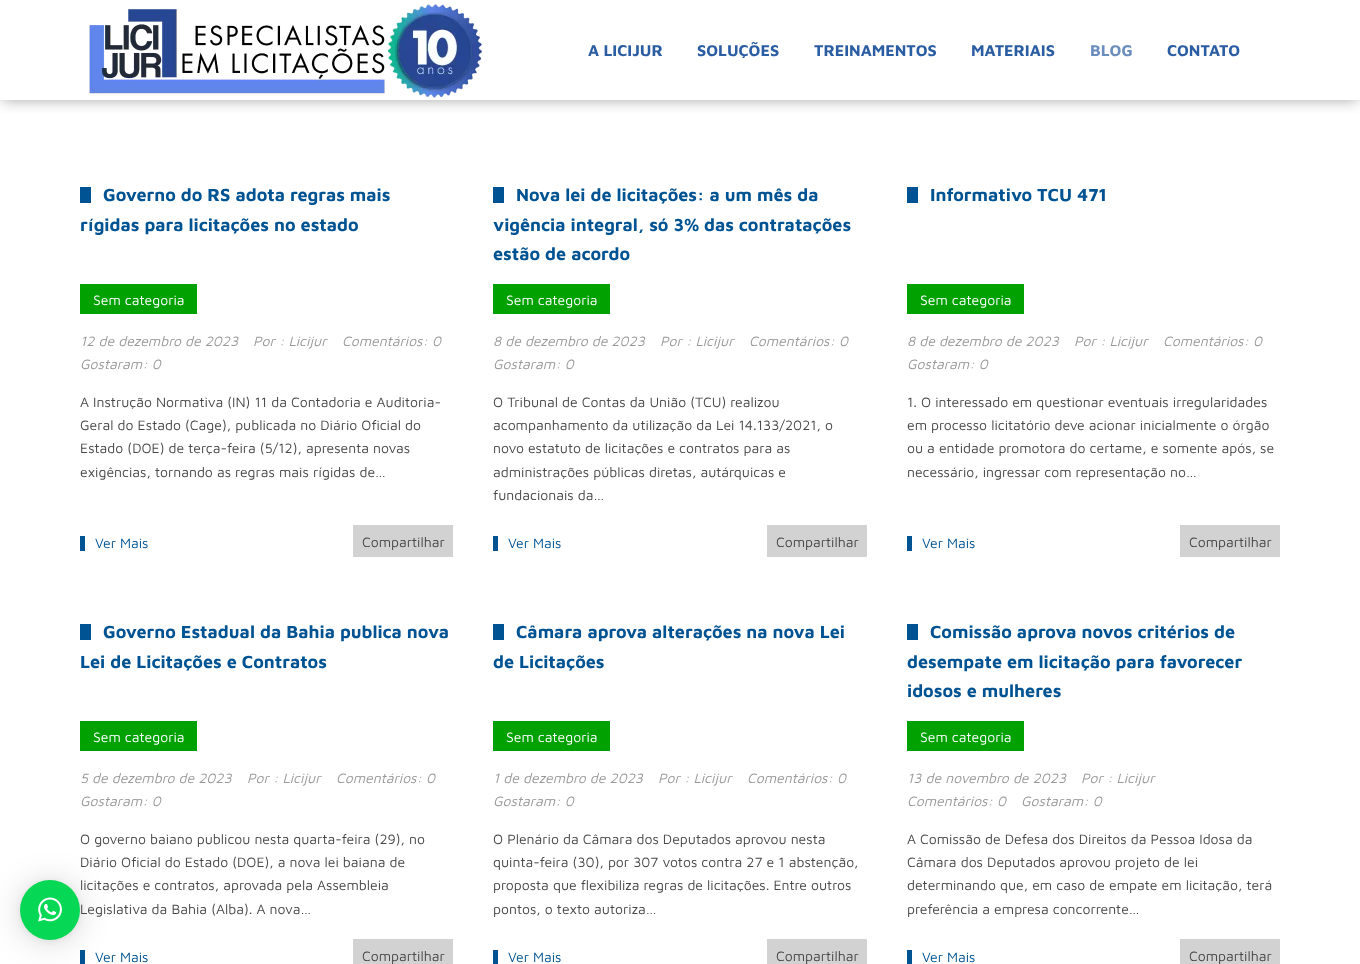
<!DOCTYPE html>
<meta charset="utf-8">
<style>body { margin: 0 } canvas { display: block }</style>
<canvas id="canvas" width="1360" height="964"></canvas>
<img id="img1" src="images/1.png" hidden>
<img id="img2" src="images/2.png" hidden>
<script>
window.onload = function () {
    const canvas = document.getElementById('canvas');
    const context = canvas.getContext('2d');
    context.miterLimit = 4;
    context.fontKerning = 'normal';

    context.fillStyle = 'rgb(255, 255, 255)';
    context.fillRect(0, 0, 1360, 964);
    context.fillStyle = 'rgb(0, 83, 146)';
    context.fillRect(80, 950, 5, 14);
    context.fillStyle = 'rgba(0, 0, 0, 0.16)';
    context.filter = 'blur(16px)';
    context.beginPath();
    context.roundRect(20, 882, 60, 60, 30);
    context.fill();
    context.filter = 'none';
    context.fillStyle = 'rgba(0, 0, 0, 0.06)';
    context.filter = 'blur(3px)';
    context.beginPath();
    context.roundRect(20, 881, 60, 60, 30);
    context.fill();
    context.filter = 'none';
    context.fillStyle = 'rgb(6, 215, 85)';
    context.beginPath();
    context.arc(50, 910, 30, 0, 2 * Math.PI);
    context.fill();
    context.drawImage(document.getElementById('img1'), 38, 897, 24, 25);
    context.save();
    context.beginPath();
    context.rect(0, 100, 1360, 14);
    context.clip();
    context.fillStyle = 'rgb(153, 153, 153)';
    context.filter = 'blur(7.5px)';
    context.beginPath();
    context.rect(2, 3, 1356, 96);
    context.fill();
    context.filter = 'none';
    context.restore();
    context.drawImage(document.getElementById('img2'), 89, 4, 393, 94);
    context.fillStyle = 'rgb(0, 83, 146)';
    context.fillRect(80, 187, 11, 16);
    context.fillStyle = 'rgb(0, 161, 0)';
    context.fillRect(80, 284, 117, 30);
    context.fillStyle = 'rgb(0, 83, 146)';
    context.fillRect(80, 536, 5, 15);
    context.fillStyle = 'rgb(210, 210, 210)';
    context.fillRect(353, 525, 100, 32);
    context.fillStyle = 'rgb(0, 83, 146)';
    context.fillRect(493, 187, 11, 16);
    context.fillStyle = 'rgb(0, 161, 0)';
    context.fillRect(493, 284, 117, 30);
    context.fillStyle = 'rgb(0, 83, 146)';
    context.fillRect(493, 536, 5, 15);
    context.fillStyle = 'rgb(210, 210, 210)';
    context.fillRect(767, 525, 100, 32);
    context.fillStyle = 'rgb(0, 83, 146)';
    context.fillRect(907, 187, 11, 16);
    context.fillStyle = 'rgb(0, 161, 0)';
    context.fillRect(907, 284, 117, 30);
    context.fillStyle = 'rgb(0, 83, 146)';
    context.fillRect(907, 536, 5, 15);
    context.fillStyle = 'rgb(210, 210, 210)';
    context.fillRect(1180, 525, 100, 32);
    context.fillStyle = 'rgb(0, 83, 146)';
    context.fillRect(80, 624, 11, 16);
    context.fillStyle = 'rgb(0, 161, 0)';
    context.fillRect(80, 721, 117, 30);
    context.fillStyle = 'rgb(210, 210, 210)';
    context.fillRect(353, 939, 100, 25);
    context.fillStyle = 'rgb(0, 83, 146)';
    context.fillRect(493, 624, 11, 16);
    context.fillStyle = 'rgb(0, 161, 0)';
    context.fillRect(493, 721, 117, 30);
    context.fillStyle = 'rgb(0, 83, 146)';
    context.fillRect(493, 950, 5, 14);
    context.fillStyle = 'rgb(210, 210, 210)';
    context.fillRect(767, 939, 100, 25);
    context.fillStyle = 'rgb(0, 83, 146)';
    context.fillRect(907, 624, 11, 16);
    context.fillStyle = 'rgb(0, 161, 0)';
    context.fillRect(907, 721, 117, 30);
    context.fillStyle = 'rgb(0, 83, 146)';
    context.fillRect(907, 950, 5, 14);
    context.fillStyle = 'rgb(210, 210, 210)';
    context.fillRect(1180, 939, 100, 25);
    context.font = 'bold 16px Maven Pro';
    context.fillStyle = 'rgb(43, 93, 163)';
    context.fillText('A LICIJUR', 588, 56);
    context.fillText('SOLUÇÕES', 697, 56);
    context.fillText('TREINAMENTOS', 814, 56);
    context.fillText('MATERIAIS', 971, 56);
    context.fillStyle = 'rgb(107, 142, 191)';
    context.fillText('BLOG', 1090, 56);
    context.fillStyle = 'rgb(43, 93, 163)';
    context.fillText('CONTATO', 1167, 56);
    context.font = 'bold 18px Maven Pro';
    context.fillStyle = 'rgb(0, 83, 146)';
    context.fillText('Governo do RS adota regras mais', 103, 201);
    context.fillText('rígidas para licitações no estado', 80, 231);
    context.font = '14px Maven Pro';
    context.fillStyle = 'rgb(255, 255, 255)';
    context.fillText('Sem categoria', 93, 305);
    context.font = 'italic 14px Maven Pro';
    context.fillStyle = 'rgb(153, 153, 153)';
    context.fillText('12 de dezembro de 2023', 80, 346);
    context.fillText('Por : Licijur', 253, 346);
    context.fillText('Comentários: 0', 342, 346);
    context.fillText('Gostaram: 0', 80, 369);
    context.font = '14px Maven Pro';
    context.fillStyle = 'rgb(71, 71, 71)';
    context.fillText('A Instrução Normativa (IN) 11 da Contadoria e Auditoria-', 80, 407);
    context.fillText('Geral do Estado (Cage), publicada no Diário Oficial do', 80, 430);
    context.fillText('Estado (DOE) de terça-feira (5/12), apresenta novas', 80, 453);
    context.fillText('exigências, tornando as regras mais rígidas de…', 80, 477);
    context.fillStyle = 'rgb(0, 83, 146)';
    context.fillText('Ver Mais', 95, 548);
    context.fillStyle = 'rgb(71, 71, 71)';
    context.fillText('Compartilhar', 362, 547);
    context.font = 'bold 18px Maven Pro';
    context.fillStyle = 'rgb(0, 83, 146)';
    context.fillText('Nova lei de licitações: a um mês da', 516, 201);
    context.fillText('vigência integral, só 3% das contratações', 493, 231);
    context.fillText('estão de acordo', 493, 260);
    context.font = '14px Maven Pro';
    context.fillStyle = 'rgb(255, 255, 255)';
    context.fillText('Sem categoria', 506, 305);
    context.font = 'italic 14px Maven Pro';
    context.fillStyle = 'rgb(153, 153, 153)';
    context.fillText('8 de dezembro de 2023', 493, 346);
    context.fillText('Por : Licijur', 660, 346);
    context.fillText('Comentários: 0', 749, 346);
    context.fillText('Gostaram: 0', 493, 369);
    context.font = '14px Maven Pro';
    context.fillStyle = 'rgb(71, 71, 71)';
    context.fillText('O Tribunal de Contas da União (TCU) realizou', 493, 407);
    context.fillText('acompanhamento da utilização da Lei 14.133/2021, o', 493, 430);
    context.fillText('novo estatuto de licitações e contratos para as', 493, 453);
    context.fillText('administrações públicas diretas, autárquicas e', 493, 477);
    context.fillText('fundacionais da…', 493, 500);
    context.fillStyle = 'rgb(0, 83, 146)';
    context.fillText('Ver Mais', 508, 548);
    context.fillStyle = 'rgb(71, 71, 71)';
    context.fillText('Compartilhar', 776, 547);
    context.font = 'bold 18px Maven Pro';
    context.fillStyle = 'rgb(0, 83, 146)';
    context.fillText('Informativo TCU 471', 930, 201);
    context.font = '14px Maven Pro';
    context.fillStyle = 'rgb(255, 255, 255)';
    context.fillText('Sem categoria', 920, 305);
    context.font = 'italic 14px Maven Pro';
    context.fillStyle = 'rgb(153, 153, 153)';
    context.fillText('8 de dezembro de 2023', 907, 346);
    context.fillText('Por : Licijur', 1074, 346);
    context.fillText('Comentários: 0', 1163, 346);
    context.fillText('Gostaram: 0', 907, 369);
    context.font = '14px Maven Pro';
    context.fillStyle = 'rgb(71, 71, 71)';
    context.fillText('1. O interessado em questionar eventuais irregularidades', 907, 407);
    context.fillText('em processo licitatório deve acionar inicialmente o órgão', 907, 430);
    context.fillText('ou a entidade promotora do certame, e somente após, se', 907, 453);
    context.fillText('necessário, ingressar com representação no…', 907, 477);
    context.fillStyle = 'rgb(0, 83, 146)';
    context.fillText('Ver Mais', 922, 548);
    context.fillStyle = 'rgb(71, 71, 71)';
    context.fillText('Compartilhar', 1189, 547);
    context.font = 'bold 18px Maven Pro';
    context.fillStyle = 'rgb(0, 83, 146)';
    context.fillText('Governo Estadual da Bahia publica nova', 103, 638);
    context.fillText('Lei de Licitações e Contratos', 80, 668);
    context.font = '14px Maven Pro';
    context.fillStyle = 'rgb(255, 255, 255)';
    context.fillText('Sem categoria', 93, 742);
    context.font = 'italic 14px Maven Pro';
    context.fillStyle = 'rgb(153, 153, 153)';
    context.fillText('5 de dezembro de 2023', 80, 783);
    context.fillText('Por : Licijur', 247, 783);
    context.fillText('Comentários: 0', 336, 783);
    context.fillText('Gostaram: 0', 80, 806);
    context.font = '14px Maven Pro';
    context.fillStyle = 'rgb(71, 71, 71)';
    context.fillText('O governo baiano publicou nesta quarta-feira (29), no', 80, 844);
    context.fillText('Diário Oficial do Estado (DOE), a nova lei baiana de', 80, 867);
    context.fillText('licitações e contratos, aprovada pela Assembleia', 80, 890);
    context.fillText('Legislativa da Bahia (Alba). A nova…', 80, 914);
    context.fillStyle = 'rgb(0, 83, 146)';
    context.fillText('Ver Mais', 95, 962);
    context.fillStyle = 'rgb(71, 71, 71)';
    context.fillText('Compartilhar', 362, 961);
    context.font = 'bold 18px Maven Pro';
    context.fillStyle = 'rgb(0, 83, 146)';
    context.fillText('Câmara aprova alterações na nova Lei', 516, 638);
    context.fillText('de Licitações', 493, 668);
    context.font = '14px Maven Pro';
    context.fillStyle = 'rgb(255, 255, 255)';
    context.fillText('Sem categoria', 506, 742);
    context.font = 'italic 14px Maven Pro';
    context.fillStyle = 'rgb(153, 153, 153)';
    context.fillText('1 de dezembro de 2023', 493, 783);
    context.fillText('Por : Licijur', 658, 783);
    context.fillText('Comentários: 0', 747, 783);
    context.fillText('Gostaram: 0', 493, 806);
    context.font = '14px Maven Pro';
    context.fillStyle = 'rgb(71, 71, 71)';
    context.fillText('O Plenário da Câmara dos Deputados aprovou nesta', 493, 844);
    context.fillText('quinta-feira (30), por 307 votos contra 27 e 1 abstenção,', 493, 867);
    context.fillText('proposta que flexibiliza regras de licitações. Entre outros', 493, 890);
    context.fillText('pontos, o texto autoriza…', 493, 914);
    context.fillStyle = 'rgb(0, 83, 146)';
    context.fillText('Ver Mais', 508, 962);
    context.fillStyle = 'rgb(71, 71, 71)';
    context.fillText('Compartilhar', 776, 961);
    context.font = 'bold 18px Maven Pro';
    context.fillStyle = 'rgb(0, 83, 146)';
    context.fillText('Comissão aprova novos critérios de', 930, 638);
    context.fillText('desempate em licitação para favorecer', 907, 668);
    context.fillText('idosos e mulheres', 907, 697);
    context.font = '14px Maven Pro';
    context.fillStyle = 'rgb(255, 255, 255)';
    context.fillText('Sem categoria', 920, 742);
    context.font = 'italic 14px Maven Pro';
    context.fillStyle = 'rgb(153, 153, 153)';
    context.fillText('13 de novembro de 2023', 907, 783);
    context.fillText('Por : Licijur', 1081, 783);
    context.fillText('Comentários: 0', 907, 806);
    context.fillText('Gostaram: 0', 1021, 806);
    context.font = '14px Maven Pro';
    context.fillStyle = 'rgb(71, 71, 71)';
    context.fillText('A Comissão de Defesa dos Direitos da Pessoa Idosa da', 907, 844);
    context.fillText('Câmara dos Deputados aprovou projeto de lei', 907, 867);
    context.fillText('determinando que, em caso de empate em licitação, terá', 907, 890);
    context.fillText('preferência a empresa concorrente…', 907, 914);
    context.fillStyle = 'rgb(0, 83, 146)';
    context.fillText('Ver Mais', 922, 962);
    context.fillStyle = 'rgb(71, 71, 71)';
    context.fillText('Compartilhar', 1189, 961);
};
</script>
